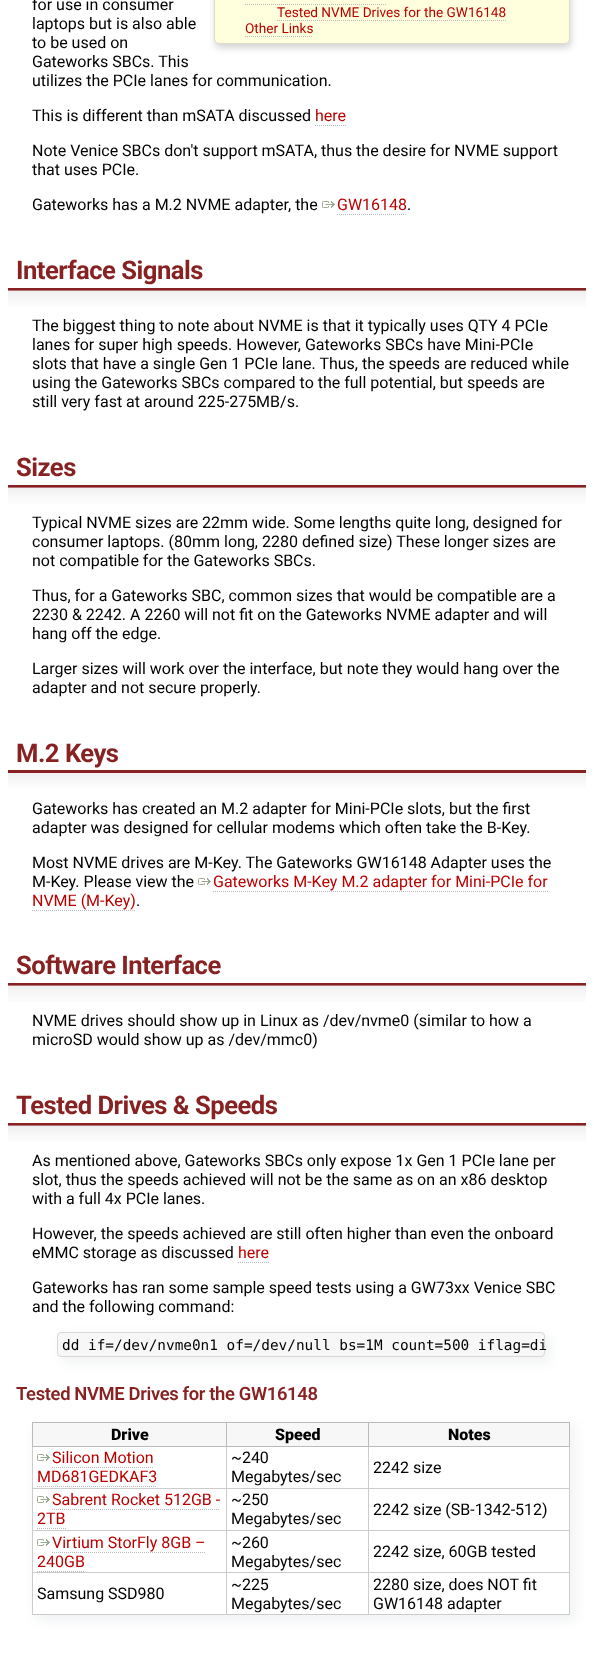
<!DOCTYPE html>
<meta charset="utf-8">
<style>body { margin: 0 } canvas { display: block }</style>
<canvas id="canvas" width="594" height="1660"></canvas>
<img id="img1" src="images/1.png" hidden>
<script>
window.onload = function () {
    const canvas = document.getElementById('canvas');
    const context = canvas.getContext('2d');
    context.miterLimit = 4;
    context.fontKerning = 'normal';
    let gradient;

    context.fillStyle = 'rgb(255, 255, 255)';
    context.fillRect(0, 0, 594, 1660);
    context.fillStyle = 'rgb(212, 212, 212)';
    context.filter = 'blur(3.5px)';
    context.beginPath();
    context.roundRect(215, -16, 356, 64, 5);
    context.fill();
    context.filter = 'none';
    context.fillStyle = 'rgb(255, 255, 221)';
    context.beginPath();
    context.roundRect(214.5, -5.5, 355, 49, 4.5);
    context.fill();
    context.strokeStyle = 'rgb(221, 221, 204)';
    context.stroke();
    context.beginPath();
    context.moveTo(245, 4.5);
    context.lineTo(387, 4.5);
    context.strokeStyle = 'rgb(187, 187, 187)';
    context.setLineDash([1, 1]);
    context.stroke();
    context.beginPath();
    context.moveTo(277, 20.5);
    context.lineTo(506, 20.5);
    context.stroke();
    context.beginPath();
    context.moveTo(245, 36.5);
    context.lineTo(313, 36.5);
    context.stroke();
    context.beginPath();
    context.moveTo(315, 125.5);
    context.lineTo(346, 125.5);
    context.stroke();
    context.drawImage(document.getElementById('img1'), 322, 201, 13, 7);
    context.beginPath();
    context.moveTo(337, 214.5);
    context.lineTo(407, 214.5);
    context.stroke();
    gradient = context.createLinearGradient(297, 311, 297, 250);
    gradient.addColorStop(0, 'rgb(255, 255, 255)');
    gradient.addColorStop(0.17, 'rgb(249, 249, 249)');
    gradient.addColorStop(0.33, 'rgb(239, 239, 239)');
    gradient.addColorStop(0.34, 'rgb(136, 34, 34)');
    gradient.addColorStop(0.38, 'rgb(136, 34, 34)');
    gradient.addColorStop(0.38, 'rgb(255, 255, 255)');
    gradient.addColorStop(1, 'rgb(255, 255, 255)');
    context.fillStyle = gradient;
    context.fillRect(8, 288, 578, 19);
    gradient = context.createLinearGradient(297, 508, 297, 447);
    gradient.addColorStop(0, 'rgb(255, 255, 255)');
    gradient.addColorStop(0.17, 'rgb(249, 249, 249)');
    gradient.addColorStop(0.33, 'rgb(239, 239, 239)');
    gradient.addColorStop(0.34, 'rgb(136, 34, 34)');
    gradient.addColorStop(0.38, 'rgb(136, 34, 34)');
    gradient.addColorStop(0.38, 'rgb(255, 255, 255)');
    gradient.addColorStop(1, 'rgb(255, 255, 255)');
    context.fillStyle = gradient;
    context.fillRect(8, 485, 578, 19);
    gradient = context.createLinearGradient(297, 793, 297, 733);
    gradient.addColorStop(0, 'rgb(255, 255, 255)');
    gradient.addColorStop(0.17, 'rgb(249, 249, 249)');
    gradient.addColorStop(0.34, 'rgb(239, 239, 239)');
    gradient.addColorStop(0.34, 'rgb(136, 34, 34)');
    gradient.addColorStop(0.38, 'rgb(136, 34, 34)');
    gradient.addColorStop(0.38, 'rgb(255, 255, 255)');
    gradient.addColorStop(1, 'rgb(255, 255, 255)');
    context.fillStyle = gradient;
    context.fillRect(8, 770, 578, 19);
    context.drawImage(document.getElementById('img1'), 198, 878, 13, 7);
    context.beginPath();
    context.moveTo(213, 891.5);
    context.lineTo(548, 891.5);
    context.stroke();
    context.beginPath();
    context.moveTo(32, 910.5);
    context.lineTo(136, 910.5);
    context.stroke();
    gradient = context.createLinearGradient(297, 1006, 297, 945);
    gradient.addColorStop(0, 'rgb(255, 255, 255)');
    gradient.addColorStop(0.17, 'rgb(249, 249, 249)');
    gradient.addColorStop(0.33, 'rgb(239, 239, 239)');
    gradient.addColorStop(0.34, 'rgb(136, 34, 34)');
    gradient.addColorStop(0.38, 'rgb(136, 34, 34)');
    gradient.addColorStop(0.38, 'rgb(255, 255, 255)');
    gradient.addColorStop(1, 'rgb(255, 255, 255)');
    context.fillStyle = gradient;
    context.fillRect(8, 983, 578, 19);
    gradient = context.createLinearGradient(297, 1146, 297, 1085);
    gradient.addColorStop(0, 'rgb(255, 255, 255)');
    gradient.addColorStop(0.17, 'rgb(249, 249, 249)');
    gradient.addColorStop(0.33, 'rgb(239, 239, 239)');
    gradient.addColorStop(0.34, 'rgb(136, 34, 34)');
    gradient.addColorStop(0.38, 'rgb(136, 34, 34)');
    gradient.addColorStop(0.38, 'rgb(255, 255, 255)');
    gradient.addColorStop(1, 'rgb(255, 255, 255)');
    context.fillStyle = gradient;
    context.fillRect(8, 1123, 578, 19);
    context.beginPath();
    context.moveTo(238, 1262.5);
    context.lineTo(269, 1262.5);
    context.stroke();
    context.fillStyle = 'rgba(210, 215, 220, 0.3)';
    context.filter = 'blur(5.5px)';
    context.beginPath();
    context.roundRect(60, 1335, 491, 28, 6);
    context.fill();
    context.filter = 'none';
    context.fillStyle = 'rgb(247, 247, 247)';
    context.beginPath();
    context.roundRect(57.5, 1332.5, 487, 24, 3.5);
    context.fill();
    context.strokeStyle = 'rgb(215, 215, 215)';
    context.setLineDash([]);
    context.stroke();
    context.save();
    context.beginPath();
    context.moveTo(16, 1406);
    context.lineTo(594, 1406);
    context.lineTo(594, 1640);
    context.lineTo(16, 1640);
    context.closePath();
    context.moveTo(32, 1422);
    context.lineTo(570, 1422);
    context.lineTo(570, 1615);
    context.lineTo(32, 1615);
    context.closePath();
    context.clip('evenodd');
    context.fillStyle = 'rgba(210, 215, 220, 0.3)';
    context.filter = 'blur(6px)';
    context.beginPath();
    context.rect(35, 1425, 541, 196);
    context.fill();
    context.filter = 'none';
    context.restore();
    context.fillStyle = 'rgb(204, 204, 204)';
    context.fillRect(569, 1447, 1, 168);
    context.fillRect(32, 1614, 538, 1);
    context.fillRect(32, 1447, 1, 168);
    context.fillStyle = 'rgb(247, 247, 247)';
    context.fillRect(33, 1423, 193, 23);
    context.fillStyle = 'rgb(187, 187, 187)';
    context.fillRect(368, 1422, 202, 1);
    context.fillRect(569, 1422, 1, 25);
    context.fillStyle = 'rgb(204, 204, 204)';
    context.fillRect(368, 1488, 202, 1);
    context.fillRect(368, 1530, 202, 1);
    context.fillRect(368, 1572, 202, 1);
    context.fillRect(368, 1572, 1, 43);
    context.fillRect(226, 1572, 143, 1);
    context.fillRect(368, 1530, 1, 43);
    context.fillRect(226, 1530, 143, 1);
    context.fillRect(368, 1488, 1, 43);
    context.fillRect(226, 1488, 143, 1);
    context.fillRect(368, 1446, 1, 43);
    context.fillStyle = 'rgb(187, 187, 187)';
    context.fillRect(368, 1446, 202, 1);
    context.fillRect(368, 1422, 1, 25);
    context.fillRect(226, 1422, 143, 1);
    context.fillStyle = 'rgb(204, 204, 204)';
    context.fillRect(226, 1572, 1, 43);
    context.fillRect(32, 1572, 195, 1);
    context.fillRect(226, 1530, 1, 43);
    context.fillRect(32, 1530, 195, 1);
    context.fillRect(226, 1488, 1, 43);
    context.fillRect(32, 1488, 195, 1);
    context.fillRect(226, 1446, 1, 43);
    context.fillStyle = 'rgb(187, 187, 187)';
    context.fillRect(226, 1446, 143, 1);
    context.fillRect(226, 1422, 1, 25);
    context.fillRect(32, 1422, 195, 1);
    context.fillRect(32, 1446, 195, 1);
    context.fillRect(32, 1422, 1, 25);
    context.fillStyle = 'rgb(247, 247, 247)';
    context.fillRect(227, 1423, 141, 23);
    context.fillRect(369, 1423, 200, 23);
    context.drawImage(document.getElementById('img1'), 37, 1454, 13, 7);
    context.beginPath();
    context.moveTo(52, 1467.5);
    context.lineTo(154, 1467.5);
    context.strokeStyle = 'rgb(187, 187, 187)';
    context.setLineDash([1, 1]);
    context.stroke();
    context.beginPath();
    context.moveTo(37, 1486.5);
    context.lineTo(157, 1486.5);
    context.stroke();
    context.drawImage(document.getElementById('img1'), 37, 1496, 13, 7);
    context.beginPath();
    context.moveTo(52, 1509.5);
    context.lineTo(220, 1509.5);
    context.stroke();
    context.beginPath();
    context.moveTo(37, 1528.5);
    context.lineTo(66, 1528.5);
    context.stroke();
    context.drawImage(document.getElementById('img1'), 37, 1539, 13, 7);
    context.beginPath();
    context.moveTo(52, 1552.5);
    context.lineTo(206, 1552.5);
    context.stroke();
    context.beginPath();
    context.moveTo(37, 1571.5);
    context.lineTo(85, 1571.5);
    context.stroke();
    context.font = '16px Roboto';
    context.fillStyle = 'rgb(0, 0, 0)';
    context.fillText('for use in consumer', 32, 10);
    context.fillText('laptops but is also able', 32, 29);
    context.fillText('to be used on', 32, 48);
    context.fillText('Gateworks SBCs. This', 32, 67);
    context.fillText('utilizes the PCIe lanes for communication.', 32, 86);
    context.font = '13.6px Roboto';
    context.fillStyle = 'rgb(187, 0, 0)';
    context.fillText('Tested NVME Drives for the GW16148', 277, 17);
    context.fillText('Other Links', 245, 33);
    context.font = '16px Roboto';
    context.fillStyle = 'rgb(0, 0, 0)';
    context.fillText('This is different than mSATA discussed', 32, 121);
    context.fillStyle = 'rgb(187, 0, 0)';
    context.fillText('here', 315, 121);
    context.fillStyle = 'rgb(0, 0, 0)';
    context.fillText('Note Venice SBCs don\'t support mSATA, thus the desire for NVME support', 32, 156);
    context.fillText('that uses PCIe.', 32, 175);
    context.fillText('Gateworks has a M.2 NVME adapter, the', 32, 210);
    context.fillStyle = 'rgb(187, 0, 0)';
    context.fillText('GW16148', 337, 210);
    context.fillStyle = 'rgb(0, 0, 0)';
    context.fillText('.', 407, 210);
    context.letterSpacing = '-0.5px';
    context.font = 'bold 25.6px Roboto';
    context.fillStyle = 'rgb(136, 34, 34)';
    context.fillText('Interface Signals', 16, 279);
    context.letterSpacing = '0px';
    context.font = '16px Roboto';
    context.fillStyle = 'rgb(0, 0, 0)';
    context.fillText('The biggest thing to note about NVME is that it typically uses QTY 4 PCIe', 32, 331);
    context.fillText('lanes for super high speeds. However, Gateworks SBCs have Mini-PCIe', 32, 350);
    context.fillText('slots that have a single Gen 1 PCIe lane. Thus, the speeds are reduced while', 32, 369);
    context.fillText('using the Gateworks SBCs compared to the full potential, but speeds are', 32, 388);
    context.fillText('still very fast at around 225-275MB/s.', 32, 407);
    context.letterSpacing = '-0.5px';
    context.font = 'bold 25.6px Roboto';
    context.fillStyle = 'rgb(136, 34, 34)';
    context.fillText('Sizes', 16, 476);
    context.letterSpacing = '0px';
    context.font = '16px Roboto';
    context.fillStyle = 'rgb(0, 0, 0)';
    context.fillText('Typical NVME sizes are 22mm wide. Some lengths quite long, designed for', 32, 528);
    context.fillText('consumer laptops. (80mm long, 2280 defined size) These longer sizes are', 32, 547);
    context.fillText('not compatible for the Gateworks SBCs.', 32, 566);
    context.fillText('Thus, for a Gateworks SBC, common sizes that would be compatible are a', 32, 601);
    context.fillText('2230 & 2242. A 2260 will not fit on the Gateworks NVME adapter and will', 32, 620);
    context.fillText('hang off the edge.', 32, 639);
    context.fillText('Larger sizes will work over the interface, but note they would hang over the', 32, 674);
    context.fillText('adapter and not secure properly.', 32, 693);
    context.letterSpacing = '-0.5px';
    context.font = 'bold 25.6px Roboto';
    context.fillStyle = 'rgb(136, 34, 34)';
    context.fillText('M.2 Keys', 16, 762);
    context.letterSpacing = '0px';
    context.font = '16px Roboto';
    context.fillStyle = 'rgb(0, 0, 0)';
    context.fillText('Gateworks has created an M.2 adapter for Mini-PCIe slots, but the first', 32, 814);
    context.fillText('adapter was designed for cellular modems which often take the B-Key.', 32, 833);
    context.fillText('Most NVME drives are M-Key. The Gateworks GW16148 Adapter uses the', 32, 868);
    context.fillText('M-Key. Please view the', 32, 887);
    context.fillStyle = 'rgb(187, 0, 0)';
    context.fillText('Gateworks M-Key M.2 adapter for Mini-PCIe for', 213, 887);
    context.fillText('NVME (M-Key)', 32, 906);
    context.fillStyle = 'rgb(0, 0, 0)';
    context.fillText('.', 136, 906);
    context.letterSpacing = '-0.5px';
    context.font = 'bold 25.6px Roboto';
    context.fillStyle = 'rgb(136, 34, 34)';
    context.fillText('Software Interface', 16, 974);
    context.letterSpacing = '0px';
    context.font = '16px Roboto';
    context.fillStyle = 'rgb(0, 0, 0)';
    context.fillText('NVME drives should show up in Linux as /dev/nvme0 (similar to how a', 32, 1026);
    context.fillText('microSD would show up as /dev/mmc0)', 32, 1045);
    context.letterSpacing = '-0.5px';
    context.font = 'bold 25.6px Roboto';
    context.fillStyle = 'rgb(136, 34, 34)';
    context.fillText('Tested Drives & Speeds', 16, 1114);
    context.letterSpacing = '0px';
    context.font = '16px Roboto';
    context.fillStyle = 'rgb(0, 0, 0)';
    context.fillText('As mentioned above, Gateworks SBCs only expose 1x Gen 1 PCIe lane per', 32, 1166);
    context.fillText('slot, thus the speeds achieved will not be the same as on an x86 desktop', 32, 1185);
    context.fillText('with a full 4x PCIe lanes.', 32, 1204);
    context.fillText('However, the speeds achieved are still often higher than even the onboard', 32, 1239);
    context.fillText('eMMC storage as discussed', 32, 1258);
    context.fillStyle = 'rgb(187, 0, 0)';
    context.fillText('here', 238, 1258);
    context.fillStyle = 'rgb(0, 0, 0)';
    context.fillText('Gateworks has ran some sample speed tests using a GW73xx Venice SBC', 32, 1293);
    context.fillText('and the following command:', 32, 1312);
    context.font = '14.4px DejaVu Sans Mono';
    context.fillText('dd if=/dev/nvme0n1 of=/dev/null bs=1M count=500 iflag=di', 62, 1350);
    context.letterSpacing = '-0.35px';
    context.font = '600 18.4px Roboto';
    context.fillStyle = 'rgb(136, 34, 34)';
    context.fillText('Tested NVME Drives for the GW16148', 16, 1400);
    context.letterSpacing = '0px';
    context.font = '900 16px Roboto';
    context.fillStyle = 'rgb(0, 0, 0)';
    context.fillText('Drive', 111, 1440);
    context.fillText('Speed', 275, 1440);
    context.fillText('Notes', 448, 1440);
    context.font = '16px Roboto';
    context.fillStyle = 'rgb(187, 0, 0)';
    context.fillText('Silicon Motion', 52, 1463);
    context.fillText('MD681GEDKAF3', 37, 1482);
    context.fillStyle = 'rgb(0, 0, 0)';
    context.fillText('~240', 231, 1463);
    context.fillText('Megabytes/sec', 231, 1482);
    context.fillText('2242 size', 373, 1473);
    context.fillStyle = 'rgb(187, 0, 0)';
    context.fillText('Sabrent Rocket 512GB -', 52, 1505);
    context.fillText('2TB', 37, 1524);
    context.fillStyle = 'rgb(0, 0, 0)';
    context.fillText('~250', 231, 1505);
    context.fillText('Megabytes/sec', 231, 1524);
    context.fillText('2242 size (SB-1342-512)', 373, 1515);
    context.fillStyle = 'rgb(187, 0, 0)';
    context.fillText('Virtium StorFly 8GB –', 52, 1548);
    context.fillText('240GB', 37, 1567);
    context.fillStyle = 'rgb(0, 0, 0)';
    context.fillText('~260', 231, 1548);
    context.fillText('Megabytes/sec', 231, 1567);
    context.fillText('2242 size, 60GB tested', 373, 1557);
    context.fillText('Samsung SSD980', 37, 1599);
    context.fillText('~225', 231, 1590);
    context.fillText('Megabytes/sec', 231, 1609);
    context.fillText('2280 size, does NOT fit', 373, 1590);
    context.fillText('GW16148 adapter', 373, 1609);
};
</script>
